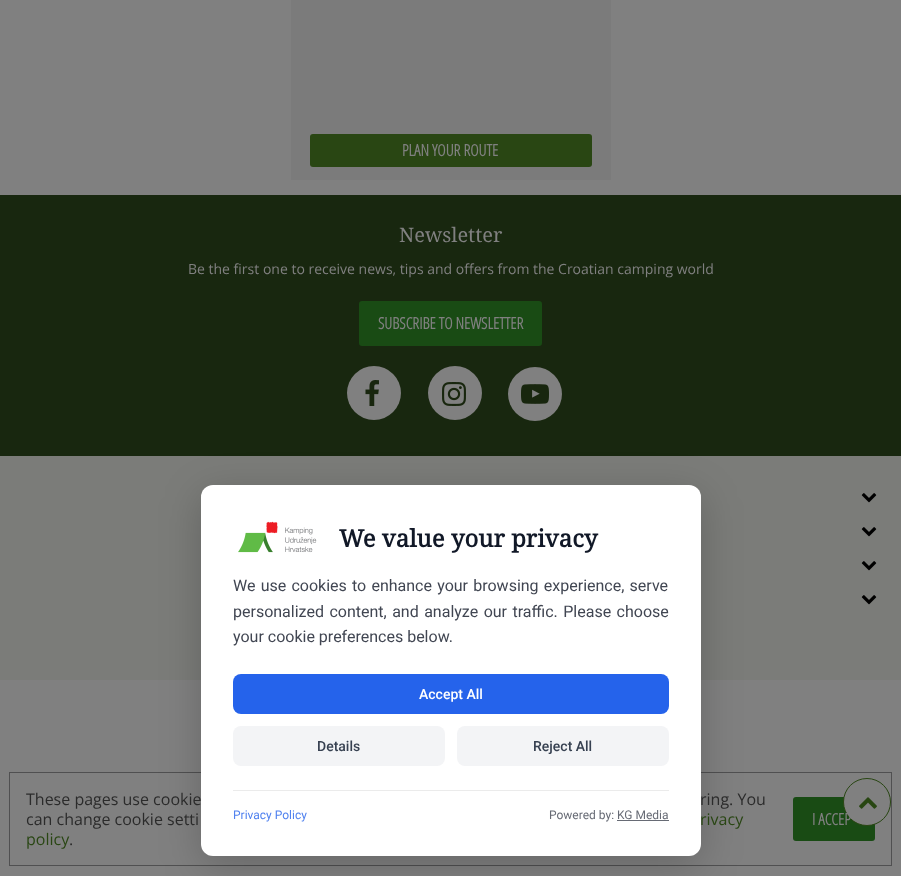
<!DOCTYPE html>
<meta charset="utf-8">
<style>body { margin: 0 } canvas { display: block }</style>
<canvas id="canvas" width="901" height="876"></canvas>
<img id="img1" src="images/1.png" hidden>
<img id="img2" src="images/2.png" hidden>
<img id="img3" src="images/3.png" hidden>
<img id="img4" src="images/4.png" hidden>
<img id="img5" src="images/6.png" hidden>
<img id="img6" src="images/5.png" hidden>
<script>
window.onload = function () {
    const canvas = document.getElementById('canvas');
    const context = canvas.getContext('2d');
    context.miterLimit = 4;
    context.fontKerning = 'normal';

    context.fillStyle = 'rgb(128, 128, 128)';
    context.fillRect(0, 0, 901, 876);
    context.fillStyle = 'rgb(123, 123, 123)';
    context.fillRect(291, 0, 320, 180);
    context.fillStyle = 'rgb(41, 70, 19)';
    context.beginPath();
    context.roundRect(310, 134, 282, 33, 3);
    context.fill();
    context.fillStyle = 'rgb(24, 39, 15)';
    context.fillRect(0, 195, 901, 261);
    context.fillStyle = 'rgb(25, 75, 20)';
    context.beginPath();
    context.roundRect(359, 301, 183, 45, 3);
    context.fill();
    context.fillStyle = 'rgb(128, 128, 128)';
    context.beginPath();
    context.arc(374, 393, 27, 0, 2 * Math.PI);
    context.fill();
    context.drawImage(document.getElementById('img1'), 365, 380, 14, 26);
    context.beginPath();
    context.arc(455, 393, 27, 0, 2 * Math.PI);
    context.fill();
    context.drawImage(document.getElementById('img2'), 442, 382, 24, 24);
    context.beginPath();
    context.arc(535, 394, 27, 0, 2 * Math.PI);
    context.fill();
    context.drawImage(document.getElementById('img3'), 521, 384, 28, 20);
    context.fillStyle = 'rgb(123, 124, 121)';
    context.fillRect(0, 456, 901, 224);
    context.drawImage(document.getElementById('img4'), 861, 493, 16, 10);
    context.drawImage(document.getElementById('img4'), 861, 527, 16, 10);
    context.drawImage(document.getElementById('img4'), 861, 561, 16, 10);
    context.drawImage(document.getElementById('img4'), 861, 595, 16, 10);
    context.strokeStyle = 'rgba(32, 32, 33, 0.5)';
    context.strokeRect(9.5, 772.5, 882, 93);
    context.fillStyle = 'rgb(25, 75, 20)';
    context.beginPath();
    context.roundRect(793, 797, 82, 44, 3);
    context.fill();
    context.fillStyle = 'rgba(0, 0, 0, 0.2)';
    context.filter = 'blur(20px)';
    context.beginPath();
    context.roundRect(201, 495, 500, 371, 12);
    context.fill();
    context.filter = 'none';
    context.fillStyle = 'rgb(128, 128, 128)';
    context.beginPath();
    context.arc(867, 802, 23.5, 0, 2 * Math.PI);
    context.fill();
    context.strokeStyle = 'rgb(41, 70, 19)';
    context.stroke();
    context.drawImage(document.getElementById('img5'), 859, 797, 18, 12);
    context.font = 'bold 16px Open Sans Condensed';
    context.fillText('PLAN YOUR ROUTE', 402, 156);
    context.font = '20px Noto Serif';
    context.fillText('Newsletter', 399, 242);
    context.font = '14px Open Sans';
    context.fillText('Be the first one to receive news, tips and offers from the Croatian camping world', 188, 274);
    context.font = 'bold 16px Open Sans Condensed';
    context.fillText('SUBSCRIBE TO NEWSLETTER', 378, 329);
    context.font = '16px Open Sans';
    context.fillStyle = 'rgb(43, 43, 43)';
    context.fillText('These pages use cookie', 26, 805);
    context.fillText('ring. You', 700, 805);
    context.fillText('can change cookie setti', 26, 825);
    context.fillStyle = 'rgb(41, 70, 19)';
    context.fillText('rivacy', 700, 825);
    context.fillText('policy', 26, 845);
    context.fillStyle = 'rgb(43, 43, 43)';
    context.fillText('.', 69, 845);
    context.font = 'bold 16px Open Sans Condensed';
    context.fillStyle = 'rgb(128, 128, 128)';
    context.fillText('I ACCEP', 812, 825);
    context.fillStyle = 'rgb(255, 255, 255)';
    context.beginPath();
    context.roundRect(201, 485, 500, 371, 12);
    context.fill();
    context.drawImage(document.getElementById('img6'), 238, 521, 79, 32);
    context.font = 'bold 24px Noto Serif';
    context.fillStyle = 'rgb(17, 24, 39)';
    context.fillText('We value your privacy', 339, 547);
    context.wordSpacing = '1.25px';
    context.font = '16px Roboto';
    context.fillStyle = 'rgb(65, 70, 82)';
    context.fillText('We use cookies to enhance your browsing experience, serve', 233, 591);
    context.wordSpacing = '1.5px';
    context.fillText('personalized content, and analyze our traffic. Please choose', 233, 617);
    context.wordSpacing = '0px';
    context.fillText('your cookie preferences below.', 233, 642);
    context.fillStyle = 'rgb(37, 99, 235)';
    context.beginPath();
    context.roundRect(233, 674, 436, 40, 8);
    context.fill();
    context.font = '500 14px Roboto';
    context.fillStyle = 'rgb(255, 255, 255)';
    context.fillText('Accept All', 419, 699);
    context.fillStyle = 'rgb(243, 244, 246)';
    context.beginPath();
    context.roundRect(233, 726, 212, 40, 8);
    context.fill();
    context.fillStyle = 'rgb(55, 65, 81)';
    context.fillText('Details', 317, 751);
    context.fillStyle = 'rgb(243, 244, 246)';
    context.beginPath();
    context.roundRect(457, 726, 212, 40, 8);
    context.fill();
    context.fillStyle = 'rgb(55, 65, 81)';
    context.fillText('Reject All', 533, 751);
    context.fillStyle = 'rgb(235, 235, 235)';
    context.fillRect(233, 790, 436, 1);
    context.font = '12px Roboto';
    context.fillStyle = 'rgb(81, 130, 239)';
    context.fillText('Privacy Policy', 233, 819);
    context.fillStyle = 'rgb(103, 107, 117)';
    context.fillText('Powered by: KG Media', 549, 819);
    context.fillRect(617, 820, 52, 1);
};
</script>
